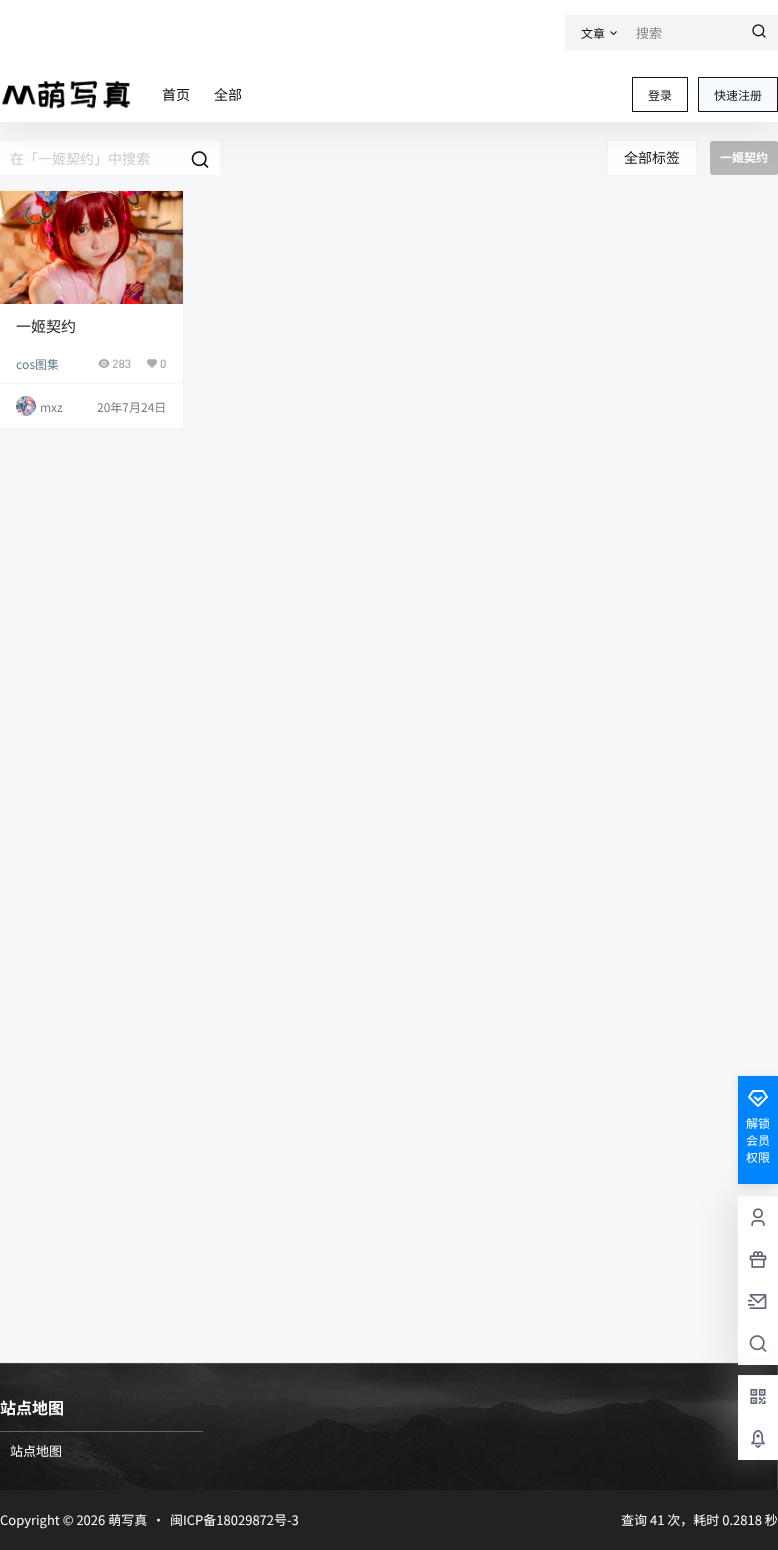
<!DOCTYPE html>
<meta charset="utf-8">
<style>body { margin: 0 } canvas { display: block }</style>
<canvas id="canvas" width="778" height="1550"></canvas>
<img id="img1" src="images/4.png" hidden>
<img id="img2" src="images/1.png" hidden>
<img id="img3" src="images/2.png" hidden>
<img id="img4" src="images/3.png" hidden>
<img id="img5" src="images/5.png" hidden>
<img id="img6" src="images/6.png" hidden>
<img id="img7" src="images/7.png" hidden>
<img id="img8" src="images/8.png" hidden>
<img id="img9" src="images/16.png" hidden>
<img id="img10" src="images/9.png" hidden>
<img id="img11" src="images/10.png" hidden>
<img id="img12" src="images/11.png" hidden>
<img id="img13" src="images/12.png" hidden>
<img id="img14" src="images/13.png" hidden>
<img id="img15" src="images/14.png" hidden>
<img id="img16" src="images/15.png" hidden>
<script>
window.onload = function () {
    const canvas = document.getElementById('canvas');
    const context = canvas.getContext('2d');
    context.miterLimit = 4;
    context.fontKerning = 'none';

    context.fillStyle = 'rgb(246, 247, 248)';
    context.fillRect(0, 0, 778, 1550);
    context.fillStyle = 'rgb(255, 255, 255)';
    context.fillRect(0, 141, 220, 34);
    context.drawImage(document.getElementById('img1'), 191, 151, 18, 17);
    context.fillStyle = 'rgba(98, 124, 153, 0.1)';
    context.filter = 'blur(1px)';
    context.beginPath();
    context.rect(608, 141, 88, 34);
    context.fill();
    context.filter = 'none';
    context.fillStyle = 'rgb(255, 255, 255)';
    context.fillRect(608, 141, 88, 34);
    context.fillStyle = 'rgb(182, 183, 184)';
    context.beginPath();
    context.roundRect(710, 141, 68, 34, 3);
    context.fill();
    context.fillStyle = 'rgba(17, 58, 93, 0.1)';
    context.filter = 'blur(20px)';
    context.beginPath();
    context.rect(0, 5, 778, 122);
    context.fill();
    context.filter = 'none';
    context.fillStyle = 'rgb(255, 255, 255)';
    context.fillRect(0, 0, 778, 64);
    context.fillStyle = 'rgb(244, 244, 244)';
    context.fillRect(565, 15, 213, 35);
    context.drawImage(document.getElementById('img2'), 610, 31, 7, 5);
    context.drawImage(document.getElementById('img3'), 752, 24, 14, 14);
    context.fillStyle = 'rgb(255, 255, 255)';
    context.fillRect(0, 65, 778, 57);
    context.fillStyle = 'rgb(252, 252, 252)';
    context.fillRect(0, 64, 778, 1);
    context.drawImage(document.getElementById('img4'), 1, 80, 130, 29);
    context.strokeStyle = 'rgb(18, 18, 18)';
    context.strokeRect(632.5, 77.5, 55, 34);
    context.fillStyle = 'rgb(247, 251, 255)';
    context.beginPath();
    context.rect(698.5, 77.5, 79, 34);
    context.fill();
    context.stroke();
    context.fillStyle = 'rgba(98, 124, 153, 0.1)';
    context.filter = 'blur(1px)';
    context.beginPath();
    context.rect(0, 191, 183, 237);
    context.fill();
    context.filter = 'none';
    context.fillStyle = 'rgb(255, 255, 255)';
    context.fillRect(0, 304, 183, 124);
    context.drawImage(document.getElementById('img5'), 0, 191, 183, 113);
    context.drawImage(document.getElementById('img6'), 98, 359, 12, 9);
    context.drawImage(document.getElementById('img7'), 147, 359, 10, 9);
    context.fillStyle = 'rgb(245, 246, 247)';
    context.fillRect(0, 383, 183, 1);
    context.fillStyle = 'rgb(238, 238, 238)';
    context.beginPath();
    context.arc(26, 406, 10, 0, 2 * Math.PI);
    context.fill();
    context.drawImage(document.getElementById('img8'), 16, 396, 20, 20);
    context.drawImage(document.getElementById('img9'), 0, 1362, 778, 128);
    context.fillStyle = 'rgba(181, 181, 181, 0.32)';
    context.filter = 'blur(17.5px)';
    context.beginPath();
    context.rect(730, 1196, 40, 169);
    context.fill();
    context.filter = 'none';
    context.fillStyle = 'rgb(255, 255, 255)';
    context.fillRect(738, 1197, 40, 168);
    context.fillStyle = 'rgb(245, 246, 247)';
    context.fillRect(738, 1196, 40, 1);
    context.fillStyle = 'rgba(0, 0, 0, 0.1)';
    context.filter = 'blur(4px)';
    context.beginPath();
    context.rect(738, 1078, 40, 108);
    context.fill();
    context.filter = 'none';
    context.fillStyle = 'rgb(0, 132, 255)';
    context.fillRect(738, 1076, 40, 108);
    context.drawImage(document.getElementById('img10'), 748, 1090, 20, 17);
    context.drawImage(document.getElementById('img11'), 751, 1208, 14, 18);
    context.drawImage(document.getElementById('img12'), 749, 1251, 18, 17);
    context.drawImage(document.getElementById('img13'), 748, 1294, 19, 15);
    context.drawImage(document.getElementById('img14'), 749, 1335, 18, 17);
    context.fillStyle = 'rgb(34, 34, 34)';
    context.fillRect(0, 1490, 778, 60);
    context.fillStyle = 'rgba(181, 181, 181, 0.32)';
    context.filter = 'blur(17.5px)';
    context.beginPath();
    context.rect(730, 1375, 40, 85);
    context.fill();
    context.filter = 'none';
    context.fillStyle = 'rgb(255, 255, 255)';
    context.fillRect(738, 1376, 40, 84);
    context.fillStyle = 'rgb(245, 246, 247)';
    context.fillRect(738, 1375, 40, 1);
    context.drawImage(document.getElementById('img15'), 750, 1389, 16, 15);
    context.drawImage(document.getElementById('img16'), 751, 1429, 14, 19);
    context.fillStyle = 'rgba(255, 255, 255, 0.3)';
    context.fillRect(0, 1431, 203, 1);
    context.font = '12px Noto Sans CJK SC';
    context.fillStyle = 'rgb(18, 18, 18)';
    context.fillText('文章', 581, 38);
    context.font = '13px Noto Sans CJK SC';
    context.fillStyle = 'rgb(131, 131, 131)';
    context.fillText('搜索', 636, 38);
    context.font = '14px Noto Sans CJK SC';
    context.fillStyle = 'rgb(18, 18, 18)';
    context.fillText('首页', 162, 100);
    context.fillText('全部', 214, 100);
    context.font = '12px Noto Sans CJK SC';
    context.fillText('登录', 648, 100);
    context.fillText('快速注册', 714, 100);
    context.font = '14px Noto Sans CJK SC';
    context.fillStyle = 'rgb(204, 204, 204)';
    context.fillText('在「一姬契约」中搜索', 10, 164);
    context.fillStyle = 'rgb(18, 18, 18)';
    context.fillText('全部标签', 624, 163);
    context.font = 'bold 12px Noto Sans CJK SC';
    context.fillStyle = 'rgb(255, 255, 255)';
    context.fillText('一姬契约', 720, 162);
    context.font = '15px Noto Sans CJK SC';
    context.fillStyle = 'rgb(34, 34, 34)';
    context.fillText('一姬契约', 16, 332);
    context.font = '12px Noto Sans CJK SC';
    context.fillStyle = 'rgb(96, 125, 139)';
    context.fillText('cos图集', 16, 369);
    context.font = '500 12px DIN';
    context.fillStyle = 'rgb(170, 174, 179)';
    context.fillText('283', 112, 368);
    context.fillText('0', 160, 368);
    context.font = '12px Noto Sans CJK SC';
    context.fillStyle = 'rgb(121, 124, 128)';
    context.fillText('mxz', 40, 412);
    context.fillText('20年7月24日', 97, 412);
    context.fillStyle = 'rgb(255, 255, 255)';
    context.fillText('解锁', 746, 1128);
    context.fillText('会员', 746, 1145);
    context.fillText('权限', 746, 1162);
    context.font = 'bold 16px Noto Sans CJK SC';
    context.fillText('站点地图', 0, 1414);
    context.font = '13px Noto Sans CJK SC';
    context.fillText('站点地图', 10, 1456);
    context.fillText('Copyright © 2026 萌写真', 0, 1525);
    context.fillText('・', 152, 1525);
    context.fillText('闽ICP备18029872号-3', 170, 1525);
    context.fillText('查询 41 次，耗时 0.2818 秒', 621, 1525);
};
</script>
